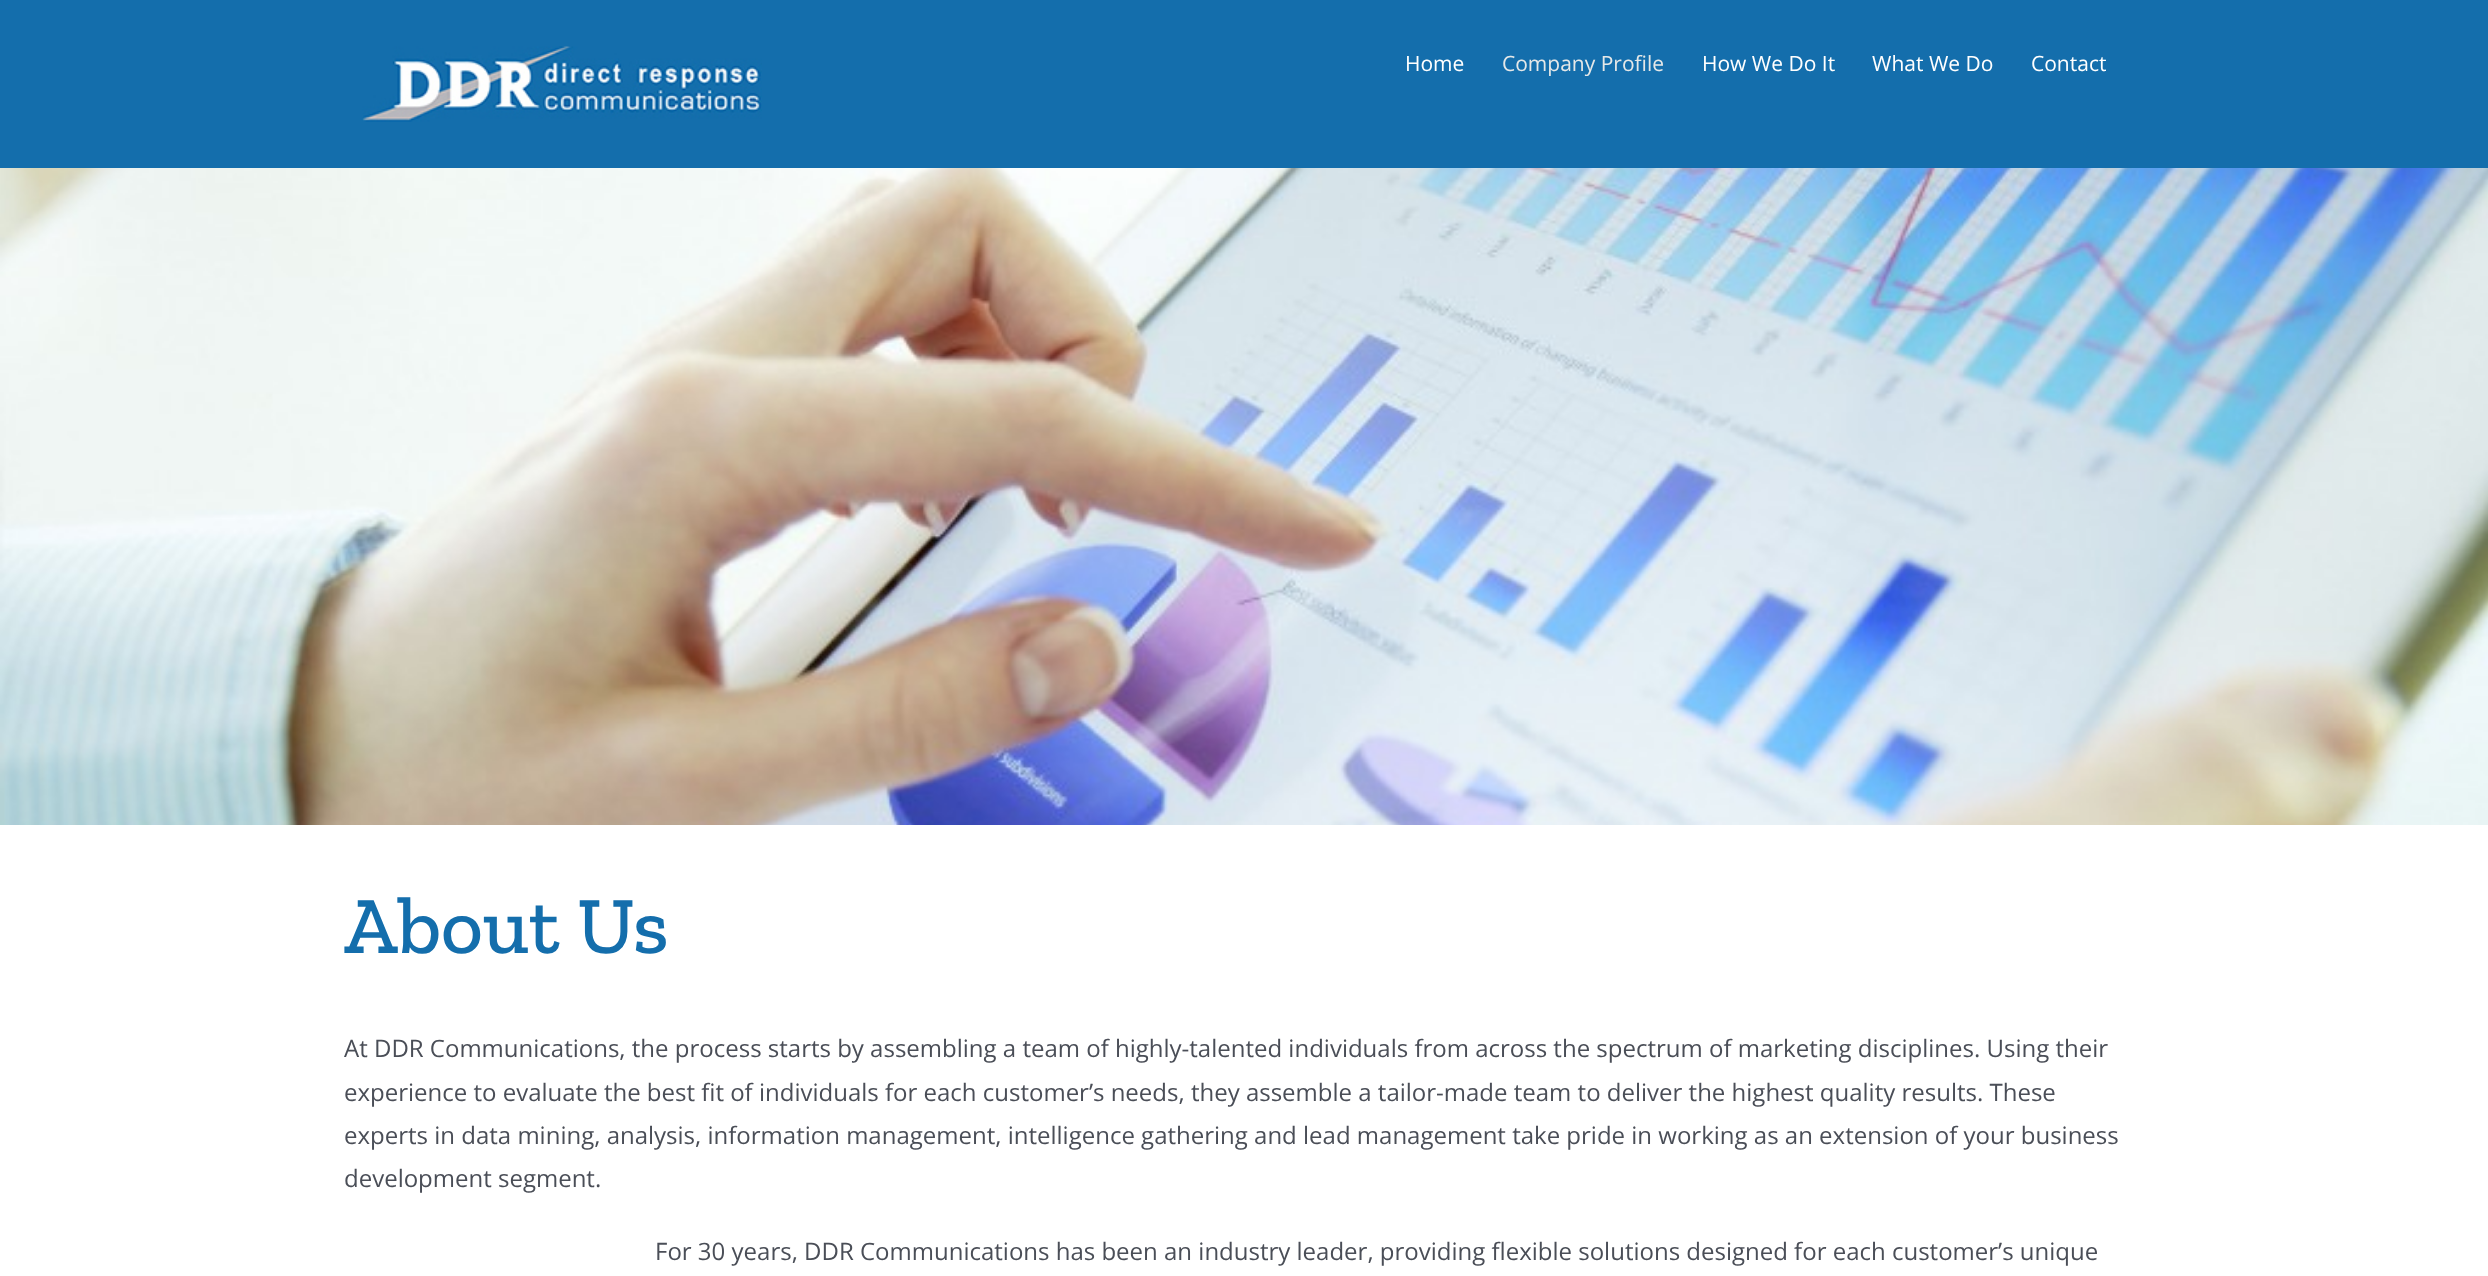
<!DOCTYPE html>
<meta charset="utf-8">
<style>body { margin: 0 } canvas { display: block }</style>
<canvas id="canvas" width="2488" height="1276"></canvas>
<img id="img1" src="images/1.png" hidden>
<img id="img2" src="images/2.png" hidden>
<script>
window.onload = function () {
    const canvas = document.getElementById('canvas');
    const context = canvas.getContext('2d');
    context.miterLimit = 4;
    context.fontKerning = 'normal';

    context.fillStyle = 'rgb(255, 255, 255)';
    context.fillRect(0, 0, 2488, 1276);
    context.fillStyle = 'rgb(20, 110, 172)';
    context.fillRect(0, 0, 2488, 168);
    context.drawImage(document.getElementById('img1'), 362, 46, 400, 76);
    context.drawImage(document.getElementById('img2'), 0, 168, 2488, 657);
    context.font = '21px Open Sans';
    context.fillStyle = 'rgb(255, 255, 255)';
    context.fillText('Home', 1405, 71);
    context.fillStyle = 'rgb(229, 232, 232)';
    context.fillText('Company Profile', 1502, 71);
    context.fillStyle = 'rgb(255, 255, 255)';
    context.fillText('How We Do It', 1702, 71);
    context.fillText('What We Do', 1872, 71);
    context.fillText('Contact', 2031, 71);
    context.font = '500 81px Zilla Slab';
    context.fillStyle = 'rgb(20, 110, 172)';
    context.fillText('About Us', 344, 953);
    context.font = '24px Open Sans';
    context.fillStyle = 'rgb(74, 78, 87)';
    context.fillText('At DDR Communications, the process starts by assembling a team of highly-talented individuals from across the spectrum of marketing disciplines. Using their', 344, 1057);
    context.fillText('experience to evaluate the best fit of individuals for each customer’s needs, they assemble a tailor-made team to deliver the highest quality results. These', 344, 1101);
    context.fillText('experts in data mining, analysis, information management, intelligence gathering and lead management take pride in working as an extension of your business', 344, 1144);
    context.fillText('development segment.', 344, 1187);
    context.fillText('For 30 years, DDR Communications has been an industry leader, providing flexible solutions designed for each customer’s unique', 655, 1260);
};
</script>
